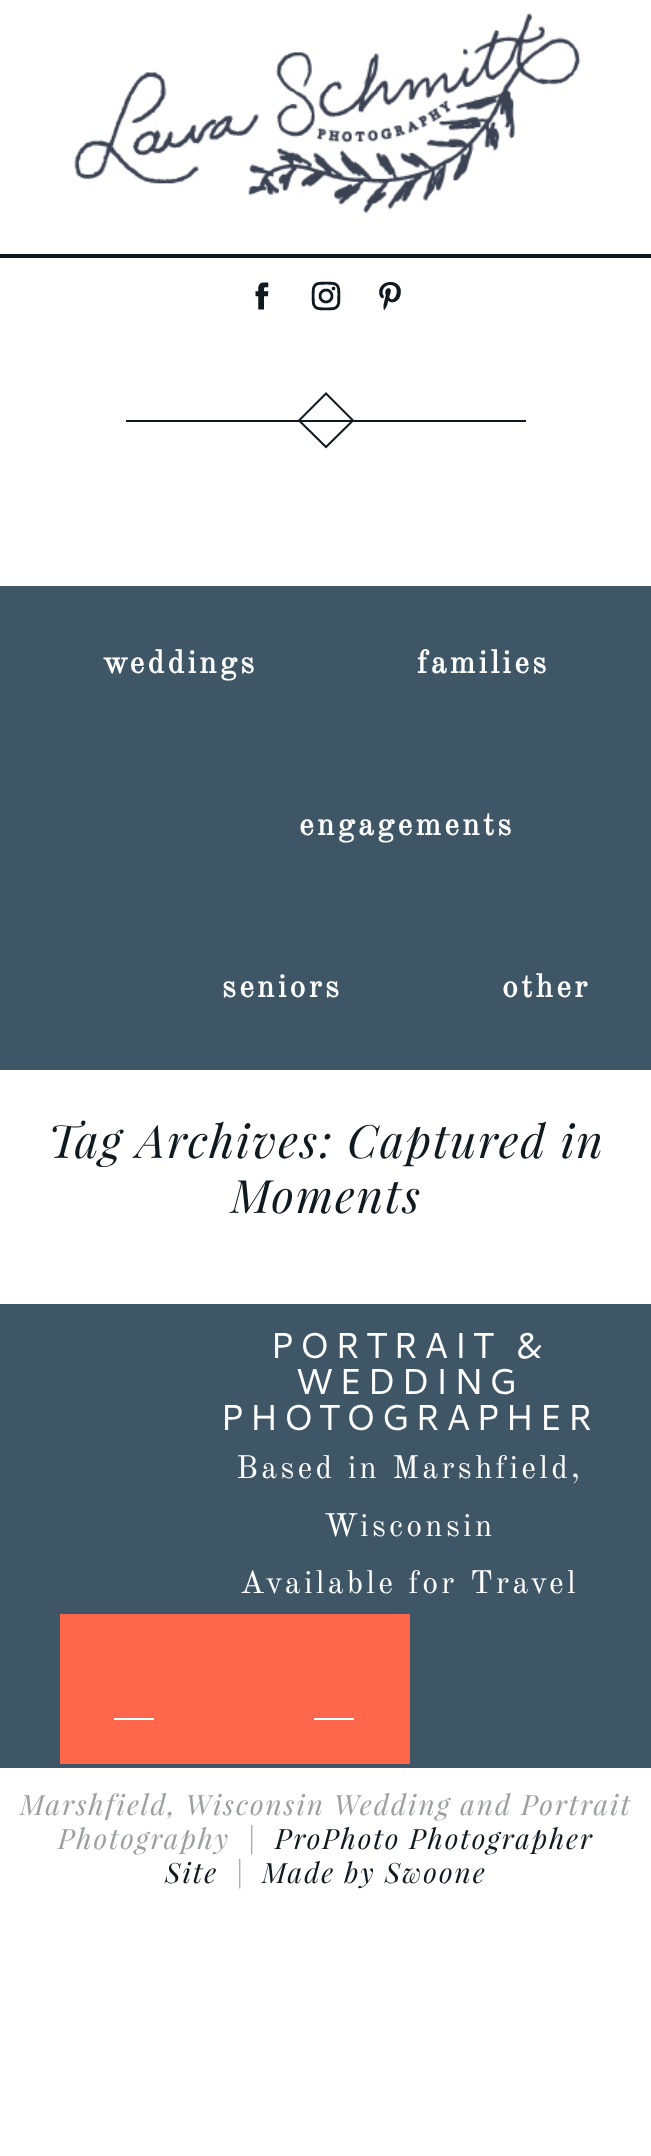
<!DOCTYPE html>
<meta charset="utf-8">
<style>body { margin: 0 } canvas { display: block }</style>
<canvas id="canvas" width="651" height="2156"></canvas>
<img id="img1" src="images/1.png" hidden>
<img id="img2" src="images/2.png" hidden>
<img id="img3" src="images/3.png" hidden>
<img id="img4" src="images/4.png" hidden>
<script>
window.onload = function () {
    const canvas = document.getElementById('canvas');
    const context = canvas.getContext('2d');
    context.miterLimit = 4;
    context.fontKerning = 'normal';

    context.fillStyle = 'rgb(255, 255, 255)';
    context.fillRect(0, 0, 651, 2156);
    context.fillStyle = 'rgb(15, 25, 32)';
    context.fillRect(0, 254, 651, 4);
    context.drawImage(document.getElementById('img1'), 74, 13, 507, 201);
    context.drawImage(document.getElementById('img2'), 255, 282, 14, 28);
    context.drawImage(document.getElementById('img3'), 311, 281, 30, 30);
    context.drawImage(document.getElementById('img4'), 379, 282, 22, 28);
    context.fillRect(126, 420, 400, 2);
    context.beginPath();
    context.moveTo(326, 393.5);
    context.lineTo(353, 420.5);
    context.lineTo(326, 447);
    context.lineTo(299, 420.5);
    context.closePath();
    context.strokeStyle = 'rgb(15, 25, 32)';
    context.lineWidth = 2;
    context.stroke();
    context.fillStyle = 'rgb(63, 86, 102)';
    context.fillRect(0, 586, 651, 484);
    context.fillRect(0, 1304, 651, 464);
    context.fillStyle = 'rgb(255, 103, 77)';
    context.fillRect(60, 1614, 350, 150);
    context.fillStyle = 'rgb(255, 255, 255)';
    context.fillRect(114, 1718, 40, 2);
    context.fillRect(314, 1718, 40, 2);
    context.letterSpacing = '3.25px';
    context.font = 'bold 32px Old Standard TT';
    context.fillText('weddings', 103, 673);
    context.fillText('families', 417, 673);
    context.fillText('engagements', 299, 835);
    context.fillText('seniors', 222, 997);
    context.fillText('other', 502, 997);
    context.letterSpacing = '1.85px';
    context.font = 'italic 46px Playfair Display';
    context.fillStyle = 'rgb(15, 25, 32)';
    context.fillText('Tag Archives: Captured in', 48, 1158);
    context.fillText('Moments', 231, 1213);
    context.letterSpacing = '5.75px';
    context.font = '36px Cantarell';
    context.fillStyle = 'rgb(255, 255, 255)';
    context.fillText('PORTRAIT &', 270, 1358);
    context.fillText('WEDDING', 295, 1394);
    context.fillText('PHOTOGRAPHER', 220, 1430);
    context.letterSpacing = '3.25px';
    context.font = '32px Old Standard TT';
    context.fillText('Based in Marshfield,', 236, 1478);
    context.fillText('Wisconsin', 324, 1536);
    context.fillText('Available for Travel', 240, 1593);
    context.letterSpacing = '1.95px';
    context.font = 'italic 28px Playfair Display';
    context.fillStyle = 'rgb(156, 158, 160)';
    context.fillText('Marshfield, Wisconsin Wedding and Portrait', 20, 1815);
    context.fillText('Photography', 58, 1849);
    context.fillText('|', 247, 1849);
    context.fillStyle = 'rgb(15, 25, 32)';
    context.fillText('ProPhoto Photographer', 275, 1849);
    context.fillText('Site', 165, 1883);
    context.fillStyle = 'rgb(156, 158, 160)';
    context.fillText('|', 235, 1883);
    context.fillStyle = 'rgb(15, 25, 32)';
    context.fillText('Made by Swoone', 262, 1883);
};
</script>
